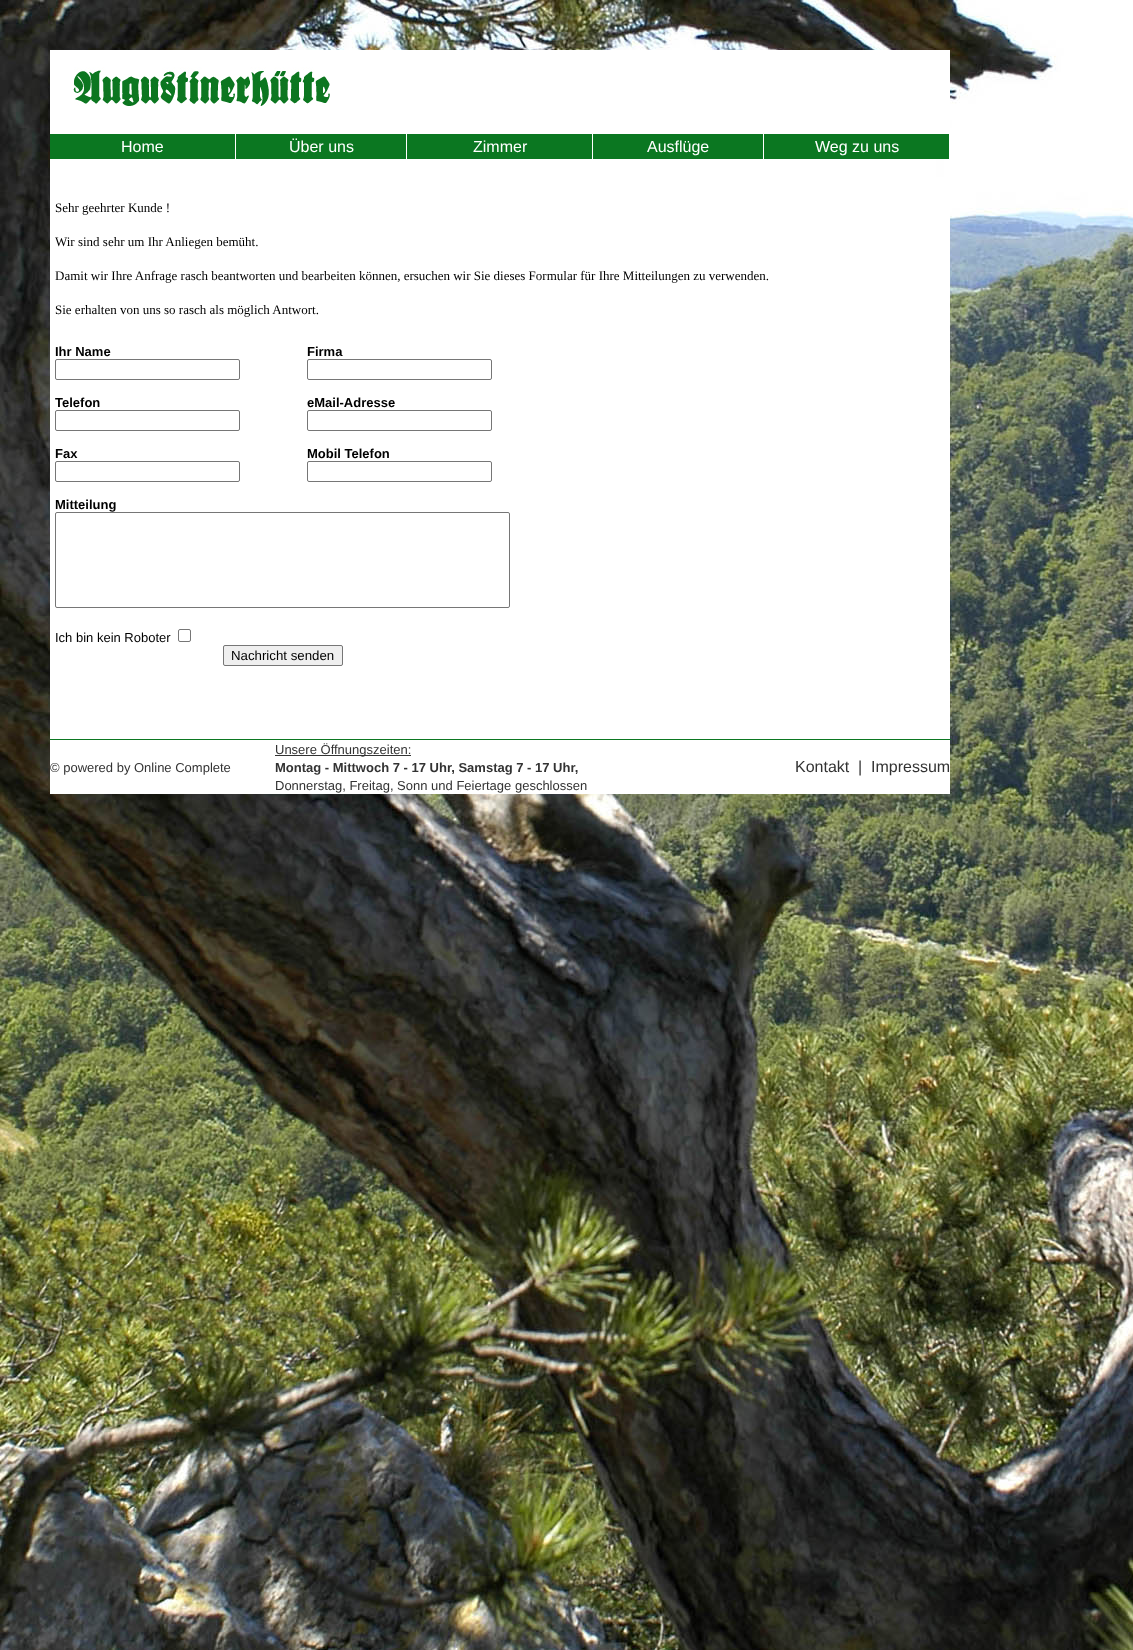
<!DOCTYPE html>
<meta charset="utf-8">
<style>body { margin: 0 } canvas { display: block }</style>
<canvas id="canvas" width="1133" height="1650"></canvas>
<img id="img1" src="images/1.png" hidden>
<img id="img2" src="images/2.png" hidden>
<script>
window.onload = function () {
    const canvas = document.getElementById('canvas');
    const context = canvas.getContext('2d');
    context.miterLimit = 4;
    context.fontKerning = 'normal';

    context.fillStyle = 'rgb(255, 255, 255)';
    context.fillRect(0, 0, 1133, 1650);
    context.drawImage(document.getElementById('img1'), 0, 0, 1133, 1650);
    context.fillRect(50, 50, 900, 84);
    context.drawImage(document.getElementById('img2'), 73, 67, 257, 39);
    context.fillStyle = 'rgb(11, 119, 33)';
    context.fillRect(50, 134, 185, 25);
    context.fillStyle = 'rgb(255, 255, 255)';
    context.fillRect(235, 134, 1, 26);
    context.fillStyle = 'rgb(11, 119, 33)';
    context.fillRect(236, 134, 170, 25);
    context.fillStyle = 'rgb(255, 255, 255)';
    context.fillRect(406, 134, 1, 26);
    context.fillStyle = 'rgb(11, 119, 33)';
    context.fillRect(407, 134, 185, 25);
    context.fillRect(593, 134, 170, 25);
    context.fillRect(764, 134, 185, 25);
    context.fillStyle = 'rgb(255, 255, 255)';
    context.fillRect(50, 159, 886, 18);
    context.fillRect(50, 177, 900, 562);
    context.beginPath();
    context.roundRect(55.5, 359.5, 184, 20, 1.5);
    context.strokeStyle = 'rgb(118, 118, 118)';
    context.stroke();
    context.beginPath();
    context.roundRect(307.5, 359.5, 184, 20, 1.5);
    context.stroke();
    context.beginPath();
    context.roundRect(55.5, 410.5, 184, 20, 1.5);
    context.stroke();
    context.beginPath();
    context.roundRect(307.5, 410.5, 184, 20, 1.5);
    context.stroke();
    context.beginPath();
    context.roundRect(55.5, 461.5, 184, 20, 1.5);
    context.stroke();
    context.beginPath();
    context.roundRect(307.5, 461.5, 184, 20, 1.5);
    context.stroke();
    context.beginPath();
    context.roundRect(55.5, 512.5, 454, 95, 1.5);
    context.stroke();
    context.beginPath();
    context.roundRect(178.5, 629.5, 12, 12, 1.5);
    context.stroke();
    context.fillStyle = 'rgb(239, 239, 239)';
    context.beginPath();
    context.roundRect(223.5, 645.5, 119, 20, 1.5);
    context.fill();
    context.stroke();
    context.fillStyle = 'rgb(255, 255, 255)';
    context.fillRect(50, 740, 900, 54);
    context.fillStyle = 'rgb(11, 119, 33)';
    context.fillRect(50, 739, 901, 1);
    context.fillStyle = 'rgb(51, 51, 51)';
    context.fillRect(275, 755, 136, 1);
    context.font = '16px Liberation Sans';
    context.fillStyle = 'rgb(255, 255, 255)';
    context.fillText('Home', 121, 152);
    context.fillText('Über uns', 289, 152);
    context.fillText('Zimmer', 473, 152);
    context.fillText('Ausflüge', 647, 152);
    context.fillText('Weg zu uns', 815, 152);
    context.font = '13px Liberation Serif';
    context.fillStyle = 'rgb(0, 0, 0)';
    context.fillText('Sehr geehrter Kunde !', 55, 212);
    context.fillText('Wir sind sehr um Ihr Anliegen bemüht.', 55, 246);
    context.fillText('Damit wir Ihre Anfrage rasch beantworten und bearbeiten können, ersuchen wir Sie dieses Formular für Ihre Mitteilungen zu verwenden.', 55, 280);
    context.fillText('Sie erhalten von uns so rasch als möglich Antwort.', 55, 314);
    context.font = 'bold 13px Liberation Sans';
    context.fillText('Ihr Name', 55, 356);
    context.fillText('Firma', 307, 356);
    context.fillText('Telefon', 55, 407);
    context.fillText('eMail-Adresse', 307, 407);
    context.fillText('Fax', 55, 458);
    context.fillText('Mobil Telefon', 307, 458);
    context.fillText('Mitteilung', 55, 509);
    context.font = '13px Liberation Sans';
    context.fillText('Ich bin kein Roboter', 55, 642);
    context.font = '13.25px Liberation Sans';
    context.fillText('Nachricht senden', 231, 660);
    context.font = '13px Liberation Sans';
    context.fillStyle = 'rgb(51, 51, 51)';
    context.fillText('© powered by Online Complete', 50, 772);
    context.fillText('Unsere Öffnungszeiten:', 275, 754);
    context.font = 'bold 13px Liberation Sans';
    context.fillText('Montag - Mittwoch 7 - 17 Uhr, Samstag 7 - 17 Uhr,', 275, 772);
    context.font = '13px Liberation Sans';
    context.fillText('Donnerstag, Freitag, Sonn und Feiertage geschlossen', 275, 790);
    context.font = '16px Liberation Sans';
    context.fillText('Kontakt', 795, 772);
    context.fillText('|', 858, 772);
    context.fillText('Impressum', 871, 772);
};
</script>
